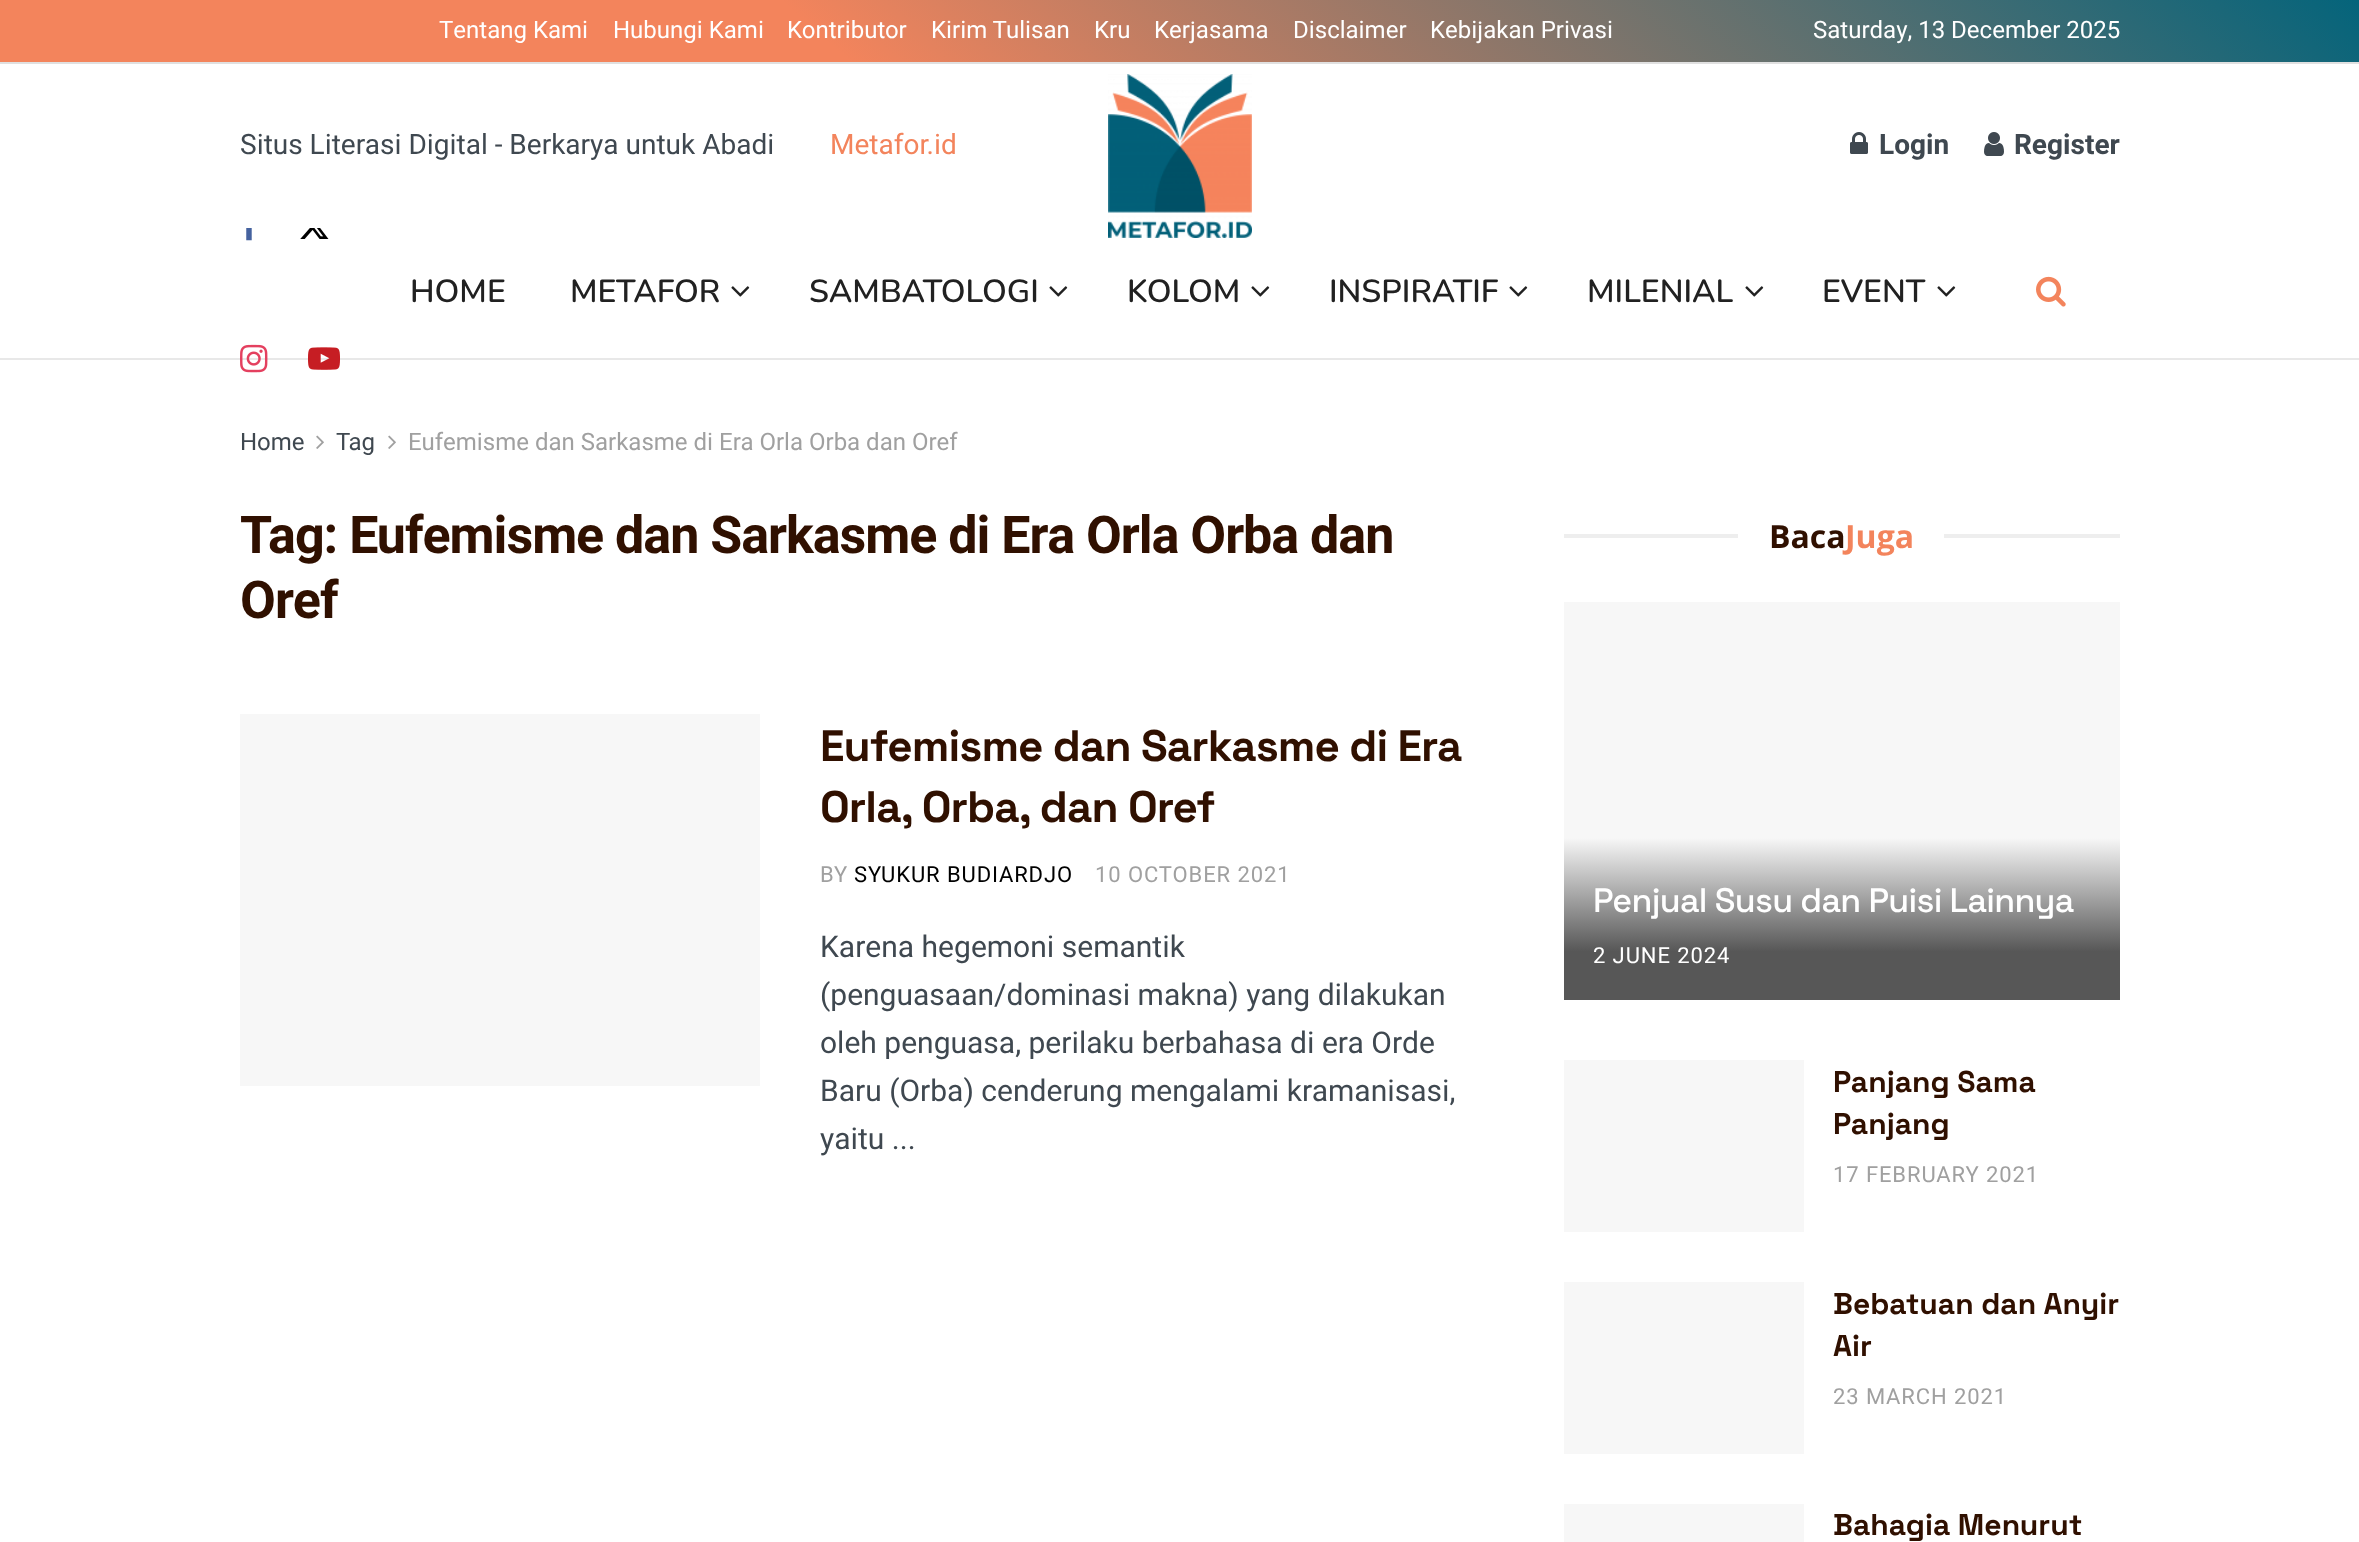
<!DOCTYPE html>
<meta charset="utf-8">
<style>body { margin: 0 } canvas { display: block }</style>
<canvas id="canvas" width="2359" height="1542"></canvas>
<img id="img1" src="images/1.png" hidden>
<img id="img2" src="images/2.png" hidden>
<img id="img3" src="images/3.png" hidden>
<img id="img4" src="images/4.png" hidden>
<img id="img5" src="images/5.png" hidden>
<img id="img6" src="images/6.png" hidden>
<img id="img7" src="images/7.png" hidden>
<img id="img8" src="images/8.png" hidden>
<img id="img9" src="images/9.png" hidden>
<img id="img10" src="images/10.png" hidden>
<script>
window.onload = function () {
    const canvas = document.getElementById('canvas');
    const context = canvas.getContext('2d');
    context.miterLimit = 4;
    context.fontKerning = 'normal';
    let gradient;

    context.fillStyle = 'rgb(255, 255, 255)';
    context.fillRect(0, 0, 2359, 1542);
    gradient = context.createLinearGradient(636, 635, 1724, -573);
    gradient.addColorStop(0.35, 'rgb(243, 132, 92)');
    gradient.addColorStop(1, 'rgb(4, 100, 123)');
    context.fillStyle = gradient;
    context.fillRect(0, 0, 2359, 62);
    context.fillStyle = 'rgb(224, 224, 224)';
    context.fillRect(0, 62, 2359, 2);
    context.drawImage(document.getElementById('img1'), 1108, 74, 144, 164);
    context.drawImage(document.getElementById('img2'), 1850, 132, 18, 22);
    context.drawImage(document.getElementById('img3'), 1984, 132, 20, 24);
    context.fillStyle = 'rgb(232, 232, 232)';
    context.fillRect(0, 358, 2359, 2);
    context.drawImage(document.getElementById('img4'), 246, 228, 6, 13);
    context.drawImage(document.getElementById('img5'), 300, 228, 29, 11);
    context.drawImage(document.getElementById('img6'), 240, 344, 28, 29);
    context.drawImage(document.getElementById('img7'), 308, 347, 32, 23);
    context.drawImage(document.getElementById('img8'), 731, 286, 19, 11);
    context.drawImage(document.getElementById('img8'), 1049, 286, 19, 11);
    context.drawImage(document.getElementById('img8'), 1251, 286, 19, 11);
    context.drawImage(document.getElementById('img8'), 1509, 286, 19, 11);
    context.drawImage(document.getElementById('img8'), 1745, 286, 19, 11);
    context.drawImage(document.getElementById('img8'), 1937, 286, 19, 11);
    context.drawImage(document.getElementById('img9'), 2036, 276, 30, 31);
    context.drawImage(document.getElementById('img10'), 316, 435, 8, 14);
    context.drawImage(document.getElementById('img10'), 388, 435, 8, 14);
    context.fillStyle = 'rgb(247, 247, 247)';
    context.fillRect(240, 714, 520, 372);
    context.fillStyle = 'rgb(238, 238, 238)';
    context.fillRect(1564, 534, 556, 4);
    context.fillStyle = 'rgb(255, 255, 255)';
    context.fillRect(1738, 534, 206, 4);
    context.fillStyle = 'rgb(247, 247, 247)';
    context.fillRect(1564, 602, 556, 236);
    gradient = context.createLinearGradient(1842, 838, 1842, 1000);
    gradient.addColorStop(0, 'rgb(247, 247, 247)');
    gradient.addColorStop(0.7, 'rgb(87, 87, 87)');
    context.fillStyle = gradient;
    context.fillRect(1564, 838, 556, 162);
    context.fillStyle = 'rgb(247, 247, 247)';
    context.fillRect(1564, 1060, 240, 172);
    context.fillRect(1564, 1282, 240, 172);
    context.fillRect(1564, 1504, 240, 38);
    context.font = '24px Heebo';
    context.fillStyle = 'rgb(255, 255, 255)';
    context.fillText('Tentang Kami', 439, 38);
    context.fillText('Hubungi Kami', 613, 38);
    context.fillText('Kontributor', 787, 38);
    context.fillText('Kirim Tulisan', 931, 38);
    context.fillText('Kru', 1094, 38);
    context.fillText('Kerjasama', 1154, 38);
    context.fillText('Disclaimer', 1293, 38);
    context.fillText('Kebijakan Privasi', 1430, 38);
    context.fillText('Saturday, 13 December 2025', 1813, 38);
    context.font = '28px Heebo';
    context.fillStyle = 'rgb(63, 72, 80)';
    context.fillText('Situs Literasi Digital - Berkarya untuk Abadi', 240, 154);
    context.fillStyle = 'rgb(243, 132, 92)';
    context.fillText('Metafor.id', 830, 154);
    context.font = 'bold 28px Heebo';
    context.fillStyle = 'rgb(63, 72, 80)';
    context.fillText('Login', 1879, 154);
    context.fillText('Register', 2014, 154);
    context.font = '600 32px Nunito';
    context.fillStyle = 'rgb(33, 33, 33)';
    context.fillText('HOME', 410, 302);
    context.fillText('METAFOR', 570, 302);
    context.fillText('SAMBATOLOGI', 809, 302);
    context.fillText('KOLOM', 1127, 302);
    context.fillText('INSPIRATIF', 1329, 302);
    context.fillText('MILENIAL', 1587, 302);
    context.fillText('EVENT', 1822, 302);
    context.font = '24px Heebo';
    context.fillStyle = 'rgb(63, 72, 80)';
    context.fillText('Home', 240, 450);
    context.fillText('Tag', 336, 450);
    context.fillStyle = 'rgb(160, 160, 160)';
    context.fillText('Eufemisme dan Sarkasme di Era Orla Orba dan Oref', 408, 450);
    context.letterSpacing = '-1.05px';
    context.font = 'bold 52px Heebo';
    context.fillStyle = 'rgb(48, 16, 0)';
    context.fillText('Tag: Eufemisme dan Sarkasme di Era Orla Orba dan', 240, 553);
    context.fillText('Oref', 240, 618);
    context.letterSpacing = '-0.9px';
    context.font = 'bold 44px Space Grotesk';
    context.fillText('Eufemisme dan Sarkasme di Era', 820, 761);
    context.fillText('Orla, Orba, dan Oref', 820, 822);
    context.letterSpacing = '0.9px';
    context.font = '22px Heebo';
    context.fillStyle = 'rgb(160, 160, 160)';
    context.fillText('BY', 820, 882);
    context.fillStyle = 'rgb(0, 0, 0)';
    context.fillText('SYUKUR BUDIARDJO', 854, 882);
    context.fillStyle = 'rgb(160, 160, 160)';
    context.fillText('10 OCTOBER 2021', 1095, 882);
    context.letterSpacing = '0px';
    context.font = '30px Heebo';
    context.fillStyle = 'rgb(63, 72, 80)';
    context.fillText('Karena hegemoni semantik', 820, 957);
    context.fillText('(penguasaan/dominasi makna) yang dilakukan', 820, 1005);
    context.fillText('oleh penguasa, perilaku berbahasa di era Orde', 820, 1053);
    context.fillText('Baru (Orba) cenderung mengalami kramanisasi,', 820, 1101);
    context.fillText('yaitu ...', 820, 1149);
    context.font = 'bold 32px Open Sans';
    context.fillStyle = 'rgb(48, 16, 0)';
    context.fillText('Baca', 1769, 548);
    context.fillStyle = 'rgb(243, 132, 92)';
    context.fillText('Juga', 1845, 548);
    context.letterSpacing = '-0.7px';
    context.font = '500 34px Space Grotesk';
    context.fillStyle = 'rgb(255, 255, 255)';
    context.fillText('Penjual Susu dan Puisi Lainnya', 1593, 912);
    context.letterSpacing = '0.9px';
    context.font = '22px Heebo';
    context.fillText('2 JUNE 2024', 1593, 963);
    context.letterSpacing = '0px';
    context.font = 'bold 30px Space Grotesk';
    context.fillStyle = 'rgb(48, 16, 0)';
    context.fillText('Panjang Sama', 1833, 1092);
    context.fillText('Panjang', 1833, 1134);
    context.letterSpacing = '0.9px';
    context.font = '22px Heebo';
    context.fillStyle = 'rgb(160, 160, 160)';
    context.fillText('17 FEBRUARY 2021', 1833, 1182);
    context.letterSpacing = '0px';
    context.font = 'bold 30px Space Grotesk';
    context.fillStyle = 'rgb(48, 16, 0)';
    context.fillText('Bebatuan dan Anyir', 1833, 1314);
    context.fillText('Air', 1833, 1356);
    context.letterSpacing = '0.9px';
    context.font = '22px Heebo';
    context.fillStyle = 'rgb(160, 160, 160)';
    context.fillText('23 MARCH 2021', 1833, 1404);
    context.letterSpacing = '0px';
    context.font = 'bold 30px Space Grotesk';
    context.fillStyle = 'rgb(48, 16, 0)';
    context.fillText('Bahagia Menurut', 1833, 1535);
};
</script>
